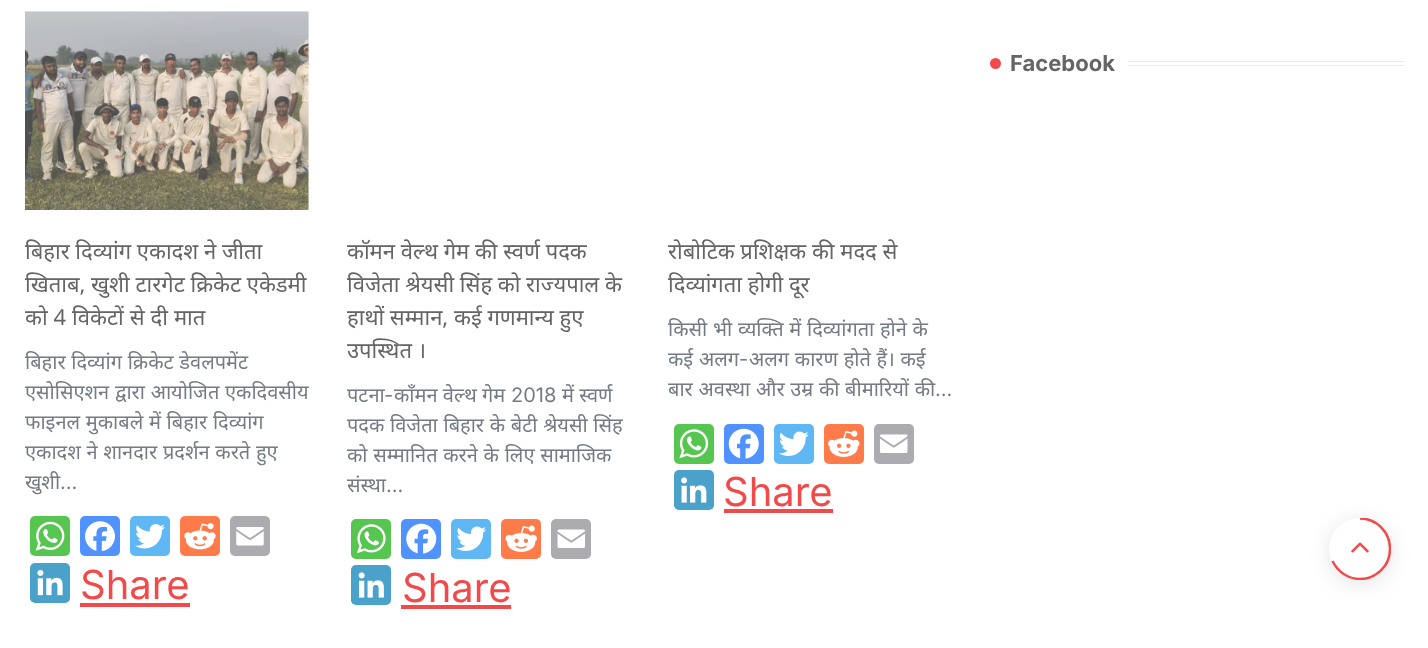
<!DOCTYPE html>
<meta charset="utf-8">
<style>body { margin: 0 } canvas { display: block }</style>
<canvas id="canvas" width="1428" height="648"></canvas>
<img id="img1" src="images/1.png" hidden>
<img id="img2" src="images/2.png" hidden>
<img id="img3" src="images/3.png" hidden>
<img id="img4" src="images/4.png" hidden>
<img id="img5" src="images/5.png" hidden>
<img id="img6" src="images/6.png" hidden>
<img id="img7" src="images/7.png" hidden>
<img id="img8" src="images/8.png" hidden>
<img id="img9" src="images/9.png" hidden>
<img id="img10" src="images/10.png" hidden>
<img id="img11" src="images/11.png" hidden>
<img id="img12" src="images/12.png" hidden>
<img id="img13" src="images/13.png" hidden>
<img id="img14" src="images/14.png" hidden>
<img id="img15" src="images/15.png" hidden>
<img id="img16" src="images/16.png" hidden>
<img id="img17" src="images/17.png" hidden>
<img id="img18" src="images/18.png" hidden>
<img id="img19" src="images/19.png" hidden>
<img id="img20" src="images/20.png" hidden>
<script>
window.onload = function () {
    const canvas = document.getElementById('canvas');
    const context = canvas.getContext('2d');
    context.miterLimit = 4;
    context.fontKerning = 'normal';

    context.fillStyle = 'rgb(255, 255, 255)';
    context.fillRect(0, 0, 1428, 648);
    context.fillStyle = 'rgb(242, 74, 74)';
    context.beginPath();
    context.arc(995.5, 63.5, 5.5, 0, 2 * Math.PI);
    context.fill();
    context.fillStyle = 'rgb(234, 234, 234)';
    context.fillRect(1128, 61, 276, 1);
    context.fillRect(1128, 65, 276, 1);
    context.drawImage(document.getElementById('img1'), 25, 11, 284, 199);
    context.fillStyle = 'rgb(87, 198, 81)';
    context.beginPath();
    context.roundRect(30, 516, 40, 40, 5);
    context.fill();
    context.drawImage(document.getElementById('img2'), 35, 521, 30, 30);
    context.fillStyle = 'rgb(80, 146, 255)';
    context.beginPath();
    context.roundRect(80, 516, 40, 40, 5);
    context.fill();
    context.drawImage(document.getElementById('img3'), 85, 521, 30, 31);
    context.fillStyle = 'rgb(95, 184, 244)';
    context.beginPath();
    context.roundRect(130, 516, 40, 40, 5);
    context.fill();
    context.drawImage(document.getElementById('img4'), 135, 524, 30, 25);
    context.fillStyle = 'rgb(255, 123, 74)';
    context.beginPath();
    context.roundRect(180, 516, 40, 40, 5);
    context.fill();
    context.drawImage(document.getElementById('img5'), 184, 523, 32, 27);
    context.fillStyle = 'rgb(171, 171, 176)';
    context.beginPath();
    context.roundRect(230, 516, 40, 40, 5);
    context.fill();
    context.drawImage(document.getElementById('img6'), 236, 527, 28, 19);
    context.fillStyle = 'rgb(74, 161, 202)';
    context.beginPath();
    context.roundRect(30, 563, 40, 40, 5);
    context.fill();
    context.drawImage(document.getElementById('img7'), 37, 569, 26, 27);
    context.fillStyle = 'rgb(242, 74, 74)';
    context.fillRect(80, 603, 110, 4);
    context.fillStyle = 'rgb(87, 198, 81)';
    context.beginPath();
    context.roundRect(351, 519, 40, 40, 5);
    context.fill();
    context.drawImage(document.getElementById('img8'), 357, 524, 29, 30);
    context.fillStyle = 'rgb(80, 146, 255)';
    context.beginPath();
    context.roundRect(401, 519, 40, 40, 5);
    context.fill();
    context.drawImage(document.getElementById('img9'), 406, 523, 31, 31);
    context.fillStyle = 'rgb(95, 184, 244)';
    context.beginPath();
    context.roundRect(451, 519, 40, 40, 5);
    context.fill();
    context.drawImage(document.getElementById('img10'), 456, 526, 31, 25);
    context.fillStyle = 'rgb(255, 123, 74)';
    context.beginPath();
    context.roundRect(501, 519, 40, 40, 5);
    context.fill();
    context.drawImage(document.getElementById('img11'), 505, 525, 32, 27);
    context.fillStyle = 'rgb(171, 171, 176)';
    context.beginPath();
    context.roundRect(551, 519, 40, 40, 5);
    context.fill();
    context.drawImage(document.getElementById('img12'), 557, 529, 28, 19);
    context.fillStyle = 'rgb(74, 161, 202)';
    context.beginPath();
    context.roundRect(351, 565, 40, 40, 5);
    context.fill();
    context.drawImage(document.getElementById('img13'), 358, 572, 26, 26);
    context.fillStyle = 'rgb(242, 74, 74)';
    context.fillRect(401, 605, 110, 4);
    context.fillStyle = 'rgb(87, 198, 81)';
    context.beginPath();
    context.roundRect(674, 424, 40, 40, 5);
    context.fill();
    context.drawImage(document.getElementById('img14'), 679, 429, 30, 30);
    context.fillStyle = 'rgb(80, 146, 255)';
    context.beginPath();
    context.roundRect(724, 424, 40, 40, 5);
    context.fill();
    context.drawImage(document.getElementById('img15'), 728, 428, 31, 31);
    context.fillStyle = 'rgb(95, 184, 244)';
    context.beginPath();
    context.roundRect(774, 424, 40, 40, 5);
    context.fill();
    context.drawImage(document.getElementById('img16'), 779, 431, 30, 25);
    context.fillStyle = 'rgb(255, 123, 74)';
    context.beginPath();
    context.roundRect(824, 424, 40, 40, 5);
    context.fill();
    context.drawImage(document.getElementById('img17'), 828, 430, 32, 27);
    context.fillStyle = 'rgb(171, 171, 176)';
    context.beginPath();
    context.roundRect(874, 424, 40, 40, 5);
    context.fill();
    context.drawImage(document.getElementById('img18'), 880, 434, 28, 19);
    context.fillStyle = 'rgb(74, 161, 202)';
    context.beginPath();
    context.roundRect(674, 470, 40, 40, 5);
    context.fill();
    context.drawImage(document.getElementById('img19'), 681, 477, 26, 26);
    context.fillStyle = 'rgb(242, 74, 74)';
    context.fillRect(724, 509, 109, 4);
    context.fillStyle = 'rgba(74, 74, 74, 0.15)';
    context.filter = 'blur(10px)';
    context.beginPath();
    context.roundRect(1329, 521, 62, 63, 31);
    context.fill();
    context.filter = 'none';
    context.fillStyle = 'rgb(255, 255, 255)';
    context.beginPath();
    context.arc(1360, 549, 31, 0, 2 * Math.PI);
    context.fill();
    context.drawImage(document.getElementById('img20'), 1351, 542, 18, 11);
    context.save();
    context.beginPath();
    context.rect(1329, 518, 62, 62);
    context.clip();
    context.beginPath();
    context.moveTo(1360, 518.5);
    context.bezierCurveTo(1376.5, 518.5, 1390, 532, 1390, 549);
    context.bezierCurveTo(1390, 565.5, 1376.5, 579, 1360, 579);
    context.bezierCurveTo(1348, 579, 1337.5, 571.5, 1332.5, 561);
    context.strokeStyle = 'rgb(242, 74, 74)';
    context.lineWidth = 2.5;
    context.stroke();
    context.restore();
    context.font = 'bold 22px Inter';
    context.fillStyle = 'rgb(101, 101, 101)';
    context.fillText('Facebook', 1010, 71);
    context.font = '22px Noto Sans';
    context.fillText('बिहार दिव्यांग एकादश ने जीता', 25, 259);
    context.fillText('खिताब, खुशी टारगेट क्रिकेट एकेडमी', 25, 292);
    context.save();
    context.beginPath();
    context.rect(25, 0, 928, 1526);
    context.clip();
    context.wordSpacing = '0.25px';
    context.fillText('को 4 विकेटों से दी मात', 25, 325);
    context.restore();
    context.wordSpacing = '0.5px';
    context.font = '20px Noto Sans';
    context.fillStyle = 'rgb(117, 122, 132)';
    context.fillText('बिहार दिव्यांग क्रिकेट डेवलपमेंट', 25, 369);
    context.fillText('एसोसिएशन द्वारा आयोजित एकदिवसीय', 25, 399);
    context.fillText('फाइनल मुकाबले में बिहार दिव्यांग', 25, 429);
    context.fillText('एकादश ने शानदार प्रदर्शन करते हुए', 25, 459);
    context.save();
    context.beginPath();
    context.rect(25, 0, 928, 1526);
    context.clip();
    context.wordSpacing = '0px';
    context.fillText('खुशी', 25, 489);
    context.restore();
    context.wordSpacing = '0px';
    context.font = '20px Inter';
    context.fillText('…', 60, 489);
    context.font = '40px Inter';
    context.fillStyle = 'rgb(242, 74, 74)';
    context.fillText('Share', 80, 599);
    context.font = '22px Noto Sans';
    context.fillStyle = 'rgb(101, 101, 101)';
    context.fillText('कॉमन वेल्थ गेम की स्वर्ण पदक', 347, 259);
    context.fillText('विजेता श्रेयसी सिंह को राज्यपाल के', 347, 292);
    context.fillText('हाथों सम्मान, कई गणमान्य हुए', 347, 325);
    context.fillText('उपस्थित ।', 347, 358);
    context.font = '20px Noto Sans';
    context.fillStyle = 'rgb(117, 122, 132)';
    context.fillText('पटना', 347, 402);
    context.font = '20px Inter';
    context.fillText('2018', 511, 402);
    context.font = '20px Noto Sans';
    context.fillText('में स्वर्ण', 562, 402);
    context.font = '20px Inter';
    context.fillText('-', 384, 402);
    context.font = '20px Noto Sans';
    context.fillText('काँमन वेल्थ गेम', 394, 402);
    context.wordSpacing = '0.5px';
    context.fillText('पदक विजेता बिहार के बेटी श्रेयसी सिंह', 347, 432);
    context.fillText('को सम्मानित करने के लिए सामाजिक', 347, 462);
    context.wordSpacing = '0px';
    context.fillText('संस्था', 347, 492);
    context.font = '20px Inter';
    context.fillText('…', 386, 492);
    context.font = '40px Inter';
    context.fillStyle = 'rgb(242, 74, 74)';
    context.fillText('Share', 402, 602);
    context.font = '22px Noto Sans';
    context.fillStyle = 'rgb(101, 101, 101)';
    context.fillText('रोबोटिक प्रशिक्षक की मदद से', 668, 259);
    context.fillText('दिव्यांगता होगी दूर', 668, 292);
    context.wordSpacing = '0.5px';
    context.font = '20px Noto Sans';
    context.fillStyle = 'rgb(117, 122, 132)';
    context.fillText('किसी भी व्यक्ति में दिव्यांगता होने के', 668, 336);
    context.fillText('कई अलग', 668, 366);
    context.wordSpacing = '0px';
    context.font = '20px Inter';
    context.fillText('-', 739, 366);
    context.wordSpacing = '0.5px';
    context.font = '20px Noto Sans';
    context.fillText('अलग कारण होते हैं। कई', 749, 366);
    context.fillText('बार अवस्था और उम्र की बीमारियों की', 668, 396);
    context.wordSpacing = '0px';
    context.font = '20px Inter';
    context.fillText('…', 935, 396);
    context.font = '40px Inter';
    context.fillStyle = 'rgb(242, 74, 74)';
    context.fillText('Share', 723, 506);
};
</script>
